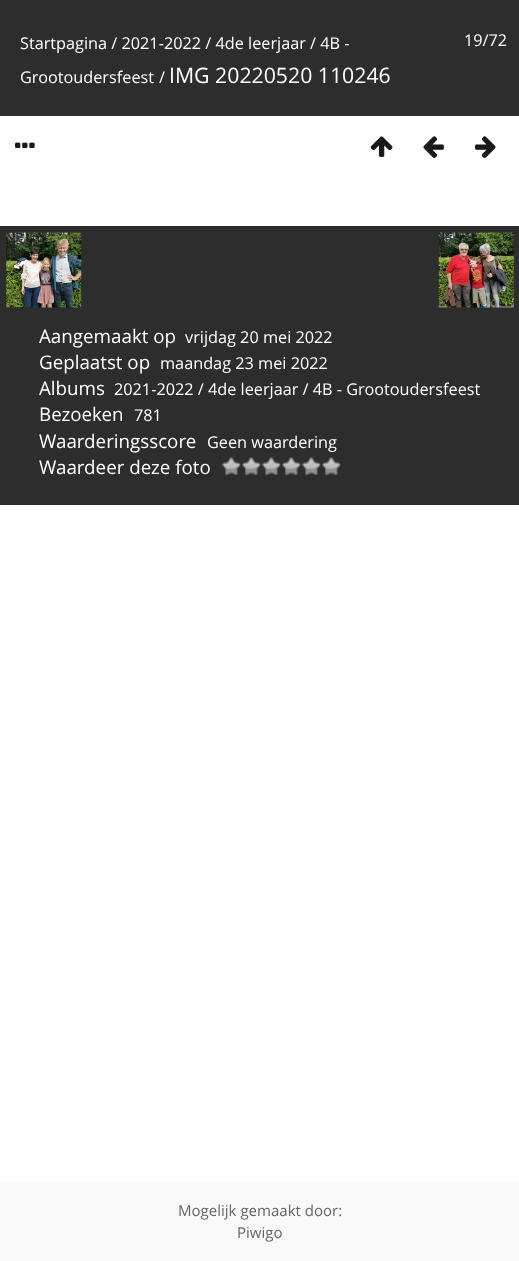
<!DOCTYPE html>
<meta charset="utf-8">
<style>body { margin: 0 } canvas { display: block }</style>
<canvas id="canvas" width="519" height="1261"></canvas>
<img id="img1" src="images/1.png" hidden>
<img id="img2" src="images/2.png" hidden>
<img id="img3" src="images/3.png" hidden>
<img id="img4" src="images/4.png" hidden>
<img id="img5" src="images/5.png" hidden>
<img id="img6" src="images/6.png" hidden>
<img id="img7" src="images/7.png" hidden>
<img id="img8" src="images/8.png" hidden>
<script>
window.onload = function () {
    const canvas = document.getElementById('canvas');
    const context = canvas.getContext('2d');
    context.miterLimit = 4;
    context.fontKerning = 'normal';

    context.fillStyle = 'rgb(255, 255, 255)';
    context.fillRect(0, 0, 519, 1261);
    context.fillStyle = 'rgb(45, 45, 45)';
    context.fillRect(0, 0, 519, 116);
    context.drawImage(document.getElementById('img1'), 15, 142, 20, 6);
    context.drawImage(document.getElementById('img2'), 370, 136, 23, 21);
    context.drawImage(document.getElementById('img3'), 423, 136, 21, 22);
    context.drawImage(document.getElementById('img4'), 475, 136, 21, 22);
    context.fillRect(0, 226, 519, 279);
    context.drawImage(document.getElementById('img5'), 6, 232, 76, 76);
    context.drawImage(document.getElementById('img6'), 438, 232, 76, 76);
    context.drawImage(document.getElementById('img7'), 221, 457, 20, 19);
    context.drawImage(document.getElementById('img8'), 241, 457, 20, 19);
    context.drawImage(document.getElementById('img7'), 261, 457, 20, 19);
    context.drawImage(document.getElementById('img7'), 281, 457, 20, 19);
    context.drawImage(document.getElementById('img7'), 301, 457, 20, 19);
    context.drawImage(document.getElementById('img7'), 321, 457, 20, 19);
    context.fillStyle = 'rgb(249, 249, 249)';
    context.fillRect(0, 1181, 519, 80);
    context.font = '16.25px Open Sans';
    context.fillStyle = 'rgb(255, 255, 255)';
    context.fillText('Startpagina / 2021-2022 / 4de leerjaar / 4B -', 20, 49);
    context.fillText('Grootoudersfeest', 20, 83);
    context.fillText('/', 159, 83);
    context.font = '21.25px Open Sans';
    context.fillText('IMG 20220520 110246', 169, 83);
    context.font = '16.25px Open Sans';
    context.fillText('19/72', 464, 46);
    context.font = '18.75px Open Sans';
    context.fillText('Aangemaakt op', 39, 343);
    context.font = '16.25px Open Sans';
    context.fillText('vrijdag 20 mei 2022', 185, 343);
    context.font = '18.75px Open Sans';
    context.fillText('Geplaatst op', 39, 369);
    context.font = '16.25px Open Sans';
    context.fillText('maandag 23 mei 2022', 160, 369);
    context.font = '18.75px Open Sans';
    context.fillText('Albums', 39, 395);
    context.font = '16.25px Open Sans';
    context.fillText('2021-2022 / 4de leerjaar / 4B - Grootoudersfeest', 114, 395);
    context.font = '18.75px Open Sans';
    context.fillText('Bezoeken', 39, 421);
    context.font = '16.25px Open Sans';
    context.fillText('781', 134, 421);
    context.font = '18.75px Open Sans';
    context.fillText('Waarderingsscore', 39, 448);
    context.font = '16.25px Open Sans';
    context.fillText('Geen waardering', 207, 448);
    context.font = '18.75px Open Sans';
    context.fillText('Waardeer deze foto', 39, 474);
    context.font = '15px Open Sans';
    context.fillStyle = 'rgb(102, 102, 102)';
    context.fillText('Mogelijk gemaakt door:', 178, 1216);
    context.fillText('Piwigo', 237, 1238);
};
</script>
